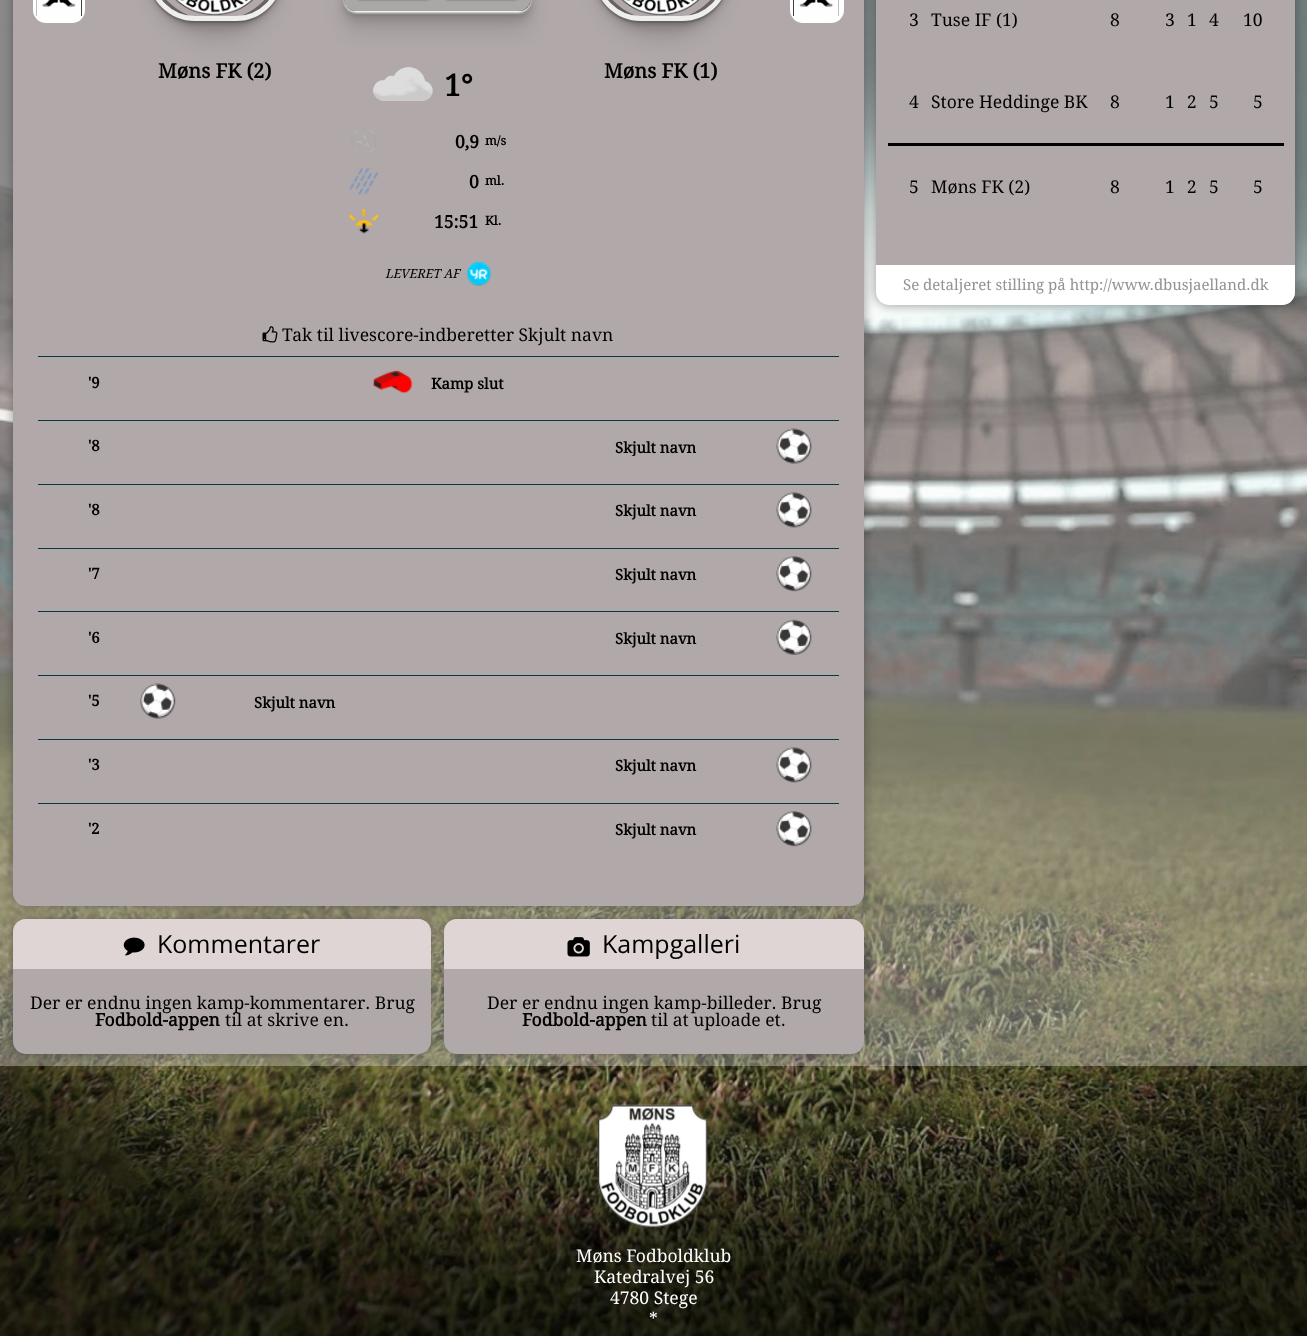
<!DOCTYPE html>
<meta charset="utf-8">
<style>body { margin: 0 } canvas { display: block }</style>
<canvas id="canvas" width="1307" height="1336"></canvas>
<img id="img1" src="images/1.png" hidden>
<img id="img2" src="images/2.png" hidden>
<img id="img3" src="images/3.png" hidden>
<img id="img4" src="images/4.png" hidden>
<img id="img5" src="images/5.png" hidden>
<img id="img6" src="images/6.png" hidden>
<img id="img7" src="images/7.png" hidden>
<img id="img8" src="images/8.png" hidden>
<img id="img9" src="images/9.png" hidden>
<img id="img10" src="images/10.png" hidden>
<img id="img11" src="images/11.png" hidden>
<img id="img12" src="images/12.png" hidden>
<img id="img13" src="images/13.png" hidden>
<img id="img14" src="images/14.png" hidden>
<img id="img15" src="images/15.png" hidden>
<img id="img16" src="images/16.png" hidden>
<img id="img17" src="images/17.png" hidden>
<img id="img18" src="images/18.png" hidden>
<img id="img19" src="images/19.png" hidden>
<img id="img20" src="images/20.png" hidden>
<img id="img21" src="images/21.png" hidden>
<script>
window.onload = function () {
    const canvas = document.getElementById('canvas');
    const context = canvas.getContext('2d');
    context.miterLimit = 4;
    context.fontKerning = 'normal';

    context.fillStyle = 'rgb(255, 255, 255)';
    context.fillRect(0, 0, 1307, 1336);
    context.drawImage(document.getElementById('img1'), 0, 0, 1307, 1336);
    context.fillStyle = 'rgba(255, 255, 255, 0.3)';
    context.fillRect(0, 0, 1307, 1066);
    context.fillStyle = 'rgba(48, 48, 48, 0.5)';
    context.filter = 'blur(6px)';
    context.beginPath();
    context.roundRect(13, -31, 851, 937, 13);
    context.fill();
    context.filter = 'none';
    context.fillStyle = 'rgb(177, 169, 169)';
    context.beginPath();
    context.roundRect(13, -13, 851, 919, 13);
    context.fill();
    context.fillStyle = 'rgb(255, 255, 255)';
    context.beginPath();
    context.roundRect(33, -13, 52, 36, 13);
    context.fill();
    context.fillStyle = 'rgb(0, 0, 0)';
    context.fillRect(36, 0, 46, 16);
    context.drawImage(document.getElementById('img2'), 36, 0, 46, 16);
    context.fillStyle = 'rgb(255, 255, 255)';
    context.beginPath();
    context.roundRect(790, -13, 54, 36, 13);
    context.fill();
    context.fillStyle = 'rgb(0, 0, 0)';
    context.fillRect(793, 0, 46, 16);
    context.drawImage(document.getElementById('img3'), 793, 0, 46, 16);
    context.save();
    context.beginPath();
    context.moveTo(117, 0);
    context.lineTo(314, 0);
    context.lineTo(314, 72);
    context.lineTo(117, 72);
    context.closePath();
    context.moveTo(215.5, -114);
    context.bezierCurveTo(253, -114, 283, -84, 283, -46.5);
    context.bezierCurveTo(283, -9, 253, 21, 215.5, 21);
    context.bezierCurveTo(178, 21, 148, -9, 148, -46.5);
    context.bezierCurveTo(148, -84, 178, -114, 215.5, -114);
    context.closePath();
    context.clip('evenodd');
    context.fillStyle = 'rgba(0, 0, 0, 0.1)';
    context.filter = 'blur(10px)';
    context.beginPath();
    context.roundRect(148, -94, 135, 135, 67.5);
    context.fill();
    context.filter = 'none';
    context.restore();
    context.save();
    context.beginPath();
    context.moveTo(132, 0);
    context.lineTo(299, 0);
    context.lineTo(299, 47);
    context.lineTo(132, 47);
    context.closePath();
    context.moveTo(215.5, -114);
    context.bezierCurveTo(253, -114, 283, -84, 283, -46.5);
    context.bezierCurveTo(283, -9, 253, 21, 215.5, 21);
    context.bezierCurveTo(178, 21, 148, -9, 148, -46.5);
    context.bezierCurveTo(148, -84, 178, -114, 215.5, -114);
    context.closePath();
    context.clip('evenodd');
    context.fillStyle = 'rgba(0, 0, 0, 0.1)';
    context.filter = 'blur(5px)';
    context.beginPath();
    context.roundRect(148, -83, 135, 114, 67.5);
    context.fill();
    context.filter = 'none';
    context.restore();
    context.save();
    context.beginPath();
    context.moveTo(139, 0);
    context.lineTo(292, 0);
    context.lineTo(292, 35);
    context.lineTo(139, 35);
    context.closePath();
    context.moveTo(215.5, -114);
    context.bezierCurveTo(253, -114, 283, -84, 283, -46.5);
    context.bezierCurveTo(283, -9, 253, 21, 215.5, 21);
    context.bezierCurveTo(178, 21, 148, -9, 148, -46.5);
    context.bezierCurveTo(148, -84, 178, -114, 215.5, -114);
    context.closePath();
    context.clip('evenodd');
    context.fillStyle = 'rgba(0, 0, 0, 0.1)';
    context.filter = 'blur(2.5px)';
    context.beginPath();
    context.roundRect(148, -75, 135, 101, 67.5);
    context.fill();
    context.filter = 'none';
    context.restore();
    context.save();
    context.beginPath();
    context.moveTo(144, 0);
    context.lineTo(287, 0);
    context.lineTo(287, 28);
    context.lineTo(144, 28);
    context.closePath();
    context.moveTo(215.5, -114);
    context.bezierCurveTo(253, -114, 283, -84, 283, -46.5);
    context.bezierCurveTo(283, -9, 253, 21, 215.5, 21);
    context.bezierCurveTo(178, 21, 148, -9, 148, -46.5);
    context.bezierCurveTo(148, -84, 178, -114, 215.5, -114);
    context.closePath();
    context.clip('evenodd');
    context.fillStyle = 'rgba(0, 0, 0, 0.1)';
    context.filter = 'blur(1px)';
    context.beginPath();
    context.roundRect(148, -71, 135, 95, 67.5);
    context.fill();
    context.filter = 'none';
    context.restore();
    context.save();
    context.beginPath();
    context.moveTo(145, 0);
    context.lineTo(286, 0);
    context.lineTo(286, 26);
    context.lineTo(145, 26);
    context.closePath();
    context.moveTo(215.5, -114);
    context.bezierCurveTo(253, -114, 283, -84, 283, -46.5);
    context.bezierCurveTo(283, -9, 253, 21, 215.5, 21);
    context.bezierCurveTo(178, 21, 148, -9, 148, -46.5);
    context.bezierCurveTo(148, -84, 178, -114, 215.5, -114);
    context.closePath();
    context.clip('evenodd');
    context.fillStyle = 'rgba(0, 0, 0, 0.1)';
    context.filter = 'blur(0.5px)';
    context.beginPath();
    context.roundRect(148, -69, 135, 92, 67.5);
    context.fill();
    context.filter = 'none';
    context.restore();
    context.beginPath();
    context.roundRect(150.5, -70.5, 130, 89, 65);
    context.strokeStyle = 'rgb(238, 238, 238)';
    context.lineWidth = 5;
    context.stroke();
    context.drawImage(document.getElementById('img4'), 175, 0, 79, 16);
    context.save();
    context.beginPath();
    context.moveTo(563, 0);
    context.lineTo(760, 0);
    context.lineTo(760, 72);
    context.lineTo(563, 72);
    context.closePath();
    context.moveTo(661.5, -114);
    context.bezierCurveTo(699, -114, 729, -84, 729, -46.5);
    context.bezierCurveTo(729, -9, 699, 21, 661.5, 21);
    context.bezierCurveTo(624, 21, 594, -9, 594, -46.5);
    context.bezierCurveTo(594, -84, 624, -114, 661.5, -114);
    context.closePath();
    context.clip('evenodd');
    context.fillStyle = 'rgba(0, 0, 0, 0.1)';
    context.filter = 'blur(10px)';
    context.beginPath();
    context.roundRect(594, -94, 135, 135, 67.5);
    context.fill();
    context.filter = 'none';
    context.restore();
    context.save();
    context.beginPath();
    context.moveTo(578, 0);
    context.lineTo(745, 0);
    context.lineTo(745, 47);
    context.lineTo(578, 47);
    context.closePath();
    context.moveTo(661.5, -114);
    context.bezierCurveTo(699, -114, 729, -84, 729, -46.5);
    context.bezierCurveTo(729, -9, 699, 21, 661.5, 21);
    context.bezierCurveTo(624, 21, 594, -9, 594, -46.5);
    context.bezierCurveTo(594, -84, 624, -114, 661.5, -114);
    context.closePath();
    context.clip('evenodd');
    context.fillStyle = 'rgba(0, 0, 0, 0.1)';
    context.filter = 'blur(5px)';
    context.beginPath();
    context.roundRect(594, -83, 135, 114, 67.5);
    context.fill();
    context.filter = 'none';
    context.restore();
    context.save();
    context.beginPath();
    context.moveTo(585, 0);
    context.lineTo(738, 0);
    context.lineTo(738, 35);
    context.lineTo(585, 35);
    context.closePath();
    context.moveTo(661.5, -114);
    context.bezierCurveTo(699, -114, 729, -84, 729, -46.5);
    context.bezierCurveTo(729, -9, 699, 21, 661.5, 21);
    context.bezierCurveTo(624, 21, 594, -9, 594, -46.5);
    context.bezierCurveTo(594, -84, 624, -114, 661.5, -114);
    context.closePath();
    context.clip('evenodd');
    context.fillStyle = 'rgba(0, 0, 0, 0.1)';
    context.filter = 'blur(2.5px)';
    context.beginPath();
    context.roundRect(594, -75, 135, 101, 67.5);
    context.fill();
    context.filter = 'none';
    context.restore();
    context.save();
    context.beginPath();
    context.moveTo(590, 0);
    context.lineTo(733, 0);
    context.lineTo(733, 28);
    context.lineTo(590, 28);
    context.closePath();
    context.moveTo(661.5, -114);
    context.bezierCurveTo(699, -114, 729, -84, 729, -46.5);
    context.bezierCurveTo(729, -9, 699, 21, 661.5, 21);
    context.bezierCurveTo(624, 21, 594, -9, 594, -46.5);
    context.bezierCurveTo(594, -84, 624, -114, 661.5, -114);
    context.closePath();
    context.clip('evenodd');
    context.fillStyle = 'rgba(0, 0, 0, 0.1)';
    context.filter = 'blur(1px)';
    context.beginPath();
    context.roundRect(594, -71, 135, 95, 67.5);
    context.fill();
    context.filter = 'none';
    context.restore();
    context.save();
    context.beginPath();
    context.moveTo(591, 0);
    context.lineTo(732, 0);
    context.lineTo(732, 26);
    context.lineTo(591, 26);
    context.closePath();
    context.moveTo(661.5, -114);
    context.bezierCurveTo(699, -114, 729, -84, 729, -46.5);
    context.bezierCurveTo(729, -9, 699, 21, 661.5, 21);
    context.bezierCurveTo(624, 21, 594, -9, 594, -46.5);
    context.bezierCurveTo(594, -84, 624, -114, 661.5, -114);
    context.closePath();
    context.clip('evenodd');
    context.fillStyle = 'rgba(0, 0, 0, 0.1)';
    context.filter = 'blur(0.5px)';
    context.beginPath();
    context.roundRect(594, -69, 135, 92, 67.5);
    context.fill();
    context.filter = 'none';
    context.restore();
    context.beginPath();
    context.roundRect(596.5, -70.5, 130, 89, 65);
    context.stroke();
    context.drawImage(document.getElementById('img5'), 621, 0, 79, 16);
    context.fillStyle = 'rgba(0, 0, 0, 0.1)';
    context.filter = 'blur(10px)';
    context.beginPath();
    context.roundRect(344, -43, 187, 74, 13);
    context.fill();
    context.filter = 'none';
    context.filter = 'blur(5px)';
    context.beginPath();
    context.roundRect(344, -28, 187, 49, 13);
    context.fill();
    context.filter = 'none';
    context.filter = 'blur(2.5px)';
    context.beginPath();
    context.roundRect(344, -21, 187, 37, 13);
    context.fill();
    context.filter = 'none';
    context.filter = 'blur(1px)';
    context.beginPath();
    context.roundRect(344, -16, 187, 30, 13);
    context.fill();
    context.filter = 'none';
    context.filter = 'blur(0.5px)';
    context.beginPath();
    context.roundRect(344, -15, 187, 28, 13);
    context.fill();
    context.filter = 'none';
    context.fillStyle = 'rgb(190, 190, 190)';
    context.filter = 'blur(0.5px)';
    context.beginPath();
    context.roundRect(344, -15, 187, 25, 13);
    context.fill();
    context.filter = 'none';
    context.fillStyle = 'rgb(255, 255, 255)';
    context.filter = 'blur(1px)';
    context.beginPath();
    context.roundRect(344, -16, 187, 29, 13);
    context.fill();
    context.filter = 'none';
    context.fillStyle = 'rgb(54, 54, 54)';
    context.beginPath();
    context.roundRect(344, -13, 187, 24, 13);
    context.fill();
    context.fillStyle = 'rgba(255, 255, 255, 0.6)';
    context.beginPath();
    context.moveTo(357, -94);
    context.bezierCurveTo(350, -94, 344, -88, 344, -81);
    context.lineTo(344, -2);
    context.bezierCurveTo(344, 1, 345, 3, 346, 6);
    context.bezierCurveTo(349, 9, 353, 11, 357, 11);
    context.lineTo(518, 11);
    context.bezierCurveTo(525, 11, 531, 5, 531, -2);
    context.lineTo(531, -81);
    context.bezierCurveTo(531, -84, 530, -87, 528, -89);
    context.bezierCurveTo(526, -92, 522, -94, 518, -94);
    context.closePath();
    context.fill();
    context.fillStyle = 'rgba(165, 160, 160, 0.5)';
    context.beginPath();
    context.moveTo(357, -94);
    context.bezierCurveTo(350, -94, 344, -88, 344, -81);
    context.lineTo(344, -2);
    context.bezierCurveTo(344, 5, 350, 11, 357, 11);
    context.lineTo(518, 11);
    context.bezierCurveTo(525, 11, 531, 5, 531, -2);
    context.lineTo(531, -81);
    context.bezierCurveTo(531, -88, 525, -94, 518, -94);
    context.closePath();
    context.fill();
    context.fillStyle = 'rgb(108, 108, 108)';
    context.filter = 'blur(1px)';
    context.beginPath();
    context.roundRect(356, -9, 75, 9, 6);
    context.fill();
    context.filter = 'none';
    context.filter = 'blur(1px)';
    context.beginPath();
    context.roundRect(444, -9, 75, 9, 6);
    context.fill();
    context.filter = 'none';
    context.drawImage(document.getElementById('img6'), 373, 67, 60, 34);
    context.drawImage(document.getElementById('img7'), 350, 128, 27, 26);
    context.drawImage(document.getElementById('img8'), 349, 167, 30, 28);
    context.drawImage(document.getElementById('img9'), 348, 208, 31, 26);
    context.drawImage(document.getElementById('img10'), 466, 261, 26, 25);
    context.drawImage(document.getElementById('img11'), 262, 326, 16, 17);
    context.fillStyle = 'rgb(7, 56, 66)';
    context.fillRect(38, 356, 801, 1);
    context.drawImage(document.getElementById('img12'), 372, 370, 41, 24);
    context.fillRect(38, 420, 801, 1);
    context.drawImage(document.getElementById('img13'), 776, 428, 36, 36);
    context.fillRect(38, 484, 801, 1);
    context.drawImage(document.getElementById('img14'), 776, 492, 36, 36);
    context.fillRect(38, 548, 801, 1);
    context.drawImage(document.getElementById('img15'), 776, 556, 36, 36);
    context.fillRect(38, 611, 801, 1);
    context.drawImage(document.getElementById('img16'), 776, 619, 36, 36);
    context.fillRect(38, 675, 801, 1);
    context.drawImage(document.getElementById('img17'), 140, 683, 36, 36);
    context.fillRect(38, 739, 801, 1);
    context.drawImage(document.getElementById('img14'), 776, 747, 36, 36);
    context.fillRect(38, 803, 801, 1);
    context.drawImage(document.getElementById('img18'), 776, 811, 36, 36);
    context.fillStyle = 'rgba(48, 48, 48, 0.5)';
    context.filter = 'blur(6px)';
    context.beginPath();
    context.roundRect(876, -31, 419, 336, 13);
    context.fill();
    context.filter = 'none';
    context.fillStyle = 'rgb(177, 169, 169)';
    context.beginPath();
    context.roundRect(876, -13, 419, 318, 13);
    context.fill();
    context.fillStyle = 'rgb(0, 0, 0)';
    context.fillRect(888, 143, 396, 3);
    context.fillStyle = 'rgb(255, 255, 255)';
    context.beginPath();
    context.roundRect(876, 265, 419, 40, [0, 0, 13, 13]);
    context.fill();
    context.fillStyle = 'rgba(48, 48, 48, 0.5)';
    context.filter = 'blur(6px)';
    context.beginPath();
    context.roundRect(13, 919, 418, 135, 13);
    context.fill();
    context.filter = 'none';
    context.fillStyle = 'rgb(177, 169, 169)';
    context.beginPath();
    context.roundRect(13, 919, 418, 135, 13);
    context.fill();
    context.fillStyle = 'rgb(223, 213, 213)';
    context.beginPath();
    context.roundRect(13, 919, 418, 50, [13, 13, 0, 0]);
    context.fill();
    context.drawImage(document.getElementById('img19'), 123, 937, 22, 19);
    context.fillStyle = 'rgba(48, 48, 48, 0.5)';
    context.filter = 'blur(6px)';
    context.beginPath();
    context.roundRect(444, 919, 420, 135, 13);
    context.fill();
    context.filter = 'none';
    context.fillStyle = 'rgb(177, 169, 169)';
    context.beginPath();
    context.roundRect(444, 919, 420, 135, 13);
    context.fill();
    context.fillStyle = 'rgb(223, 213, 213)';
    context.beginPath();
    context.roundRect(444, 919, 420, 50, [13, 13, 0, 0]);
    context.fill();
    context.drawImage(document.getElementById('img20'), 567, 937, 23, 20);
    context.drawImage(document.getElementById('img21'), 597, 1104, 111, 124);
    context.font = 'bold 20px Droid Serif';
    context.fillStyle = 'rgb(0, 0, 0)';
    context.fillText('Møns FK (2)', 158, 78);
    context.fillText('Møns FK (1)', 604, 78);
    context.font = 'bold 30px Droid Serif';
    context.fillText('1°', 444, 96);
    context.font = 'bold 17.5px Droid Serif';
    context.fillText('0,9', 455, 148);
    context.font = 'bold 12.5px Droid Serif';
    context.fillText('m/s', 485, 145);
    context.font = 'bold 17.5px Droid Serif';
    context.fillText('0', 469, 188);
    context.font = 'bold 12.5px Droid Serif';
    context.fillText('ml.', 485, 185);
    context.font = 'bold 17.5px Droid Serif';
    context.fillText('15:51', 434, 228);
    context.font = 'bold 12.5px Droid Serif';
    context.fillText('Kl.', 485, 225);
    context.font = 'italic 12.5px Droid Serif';
    context.fillText('LEVERET AF', 385, 278);
    context.font = '17.5px Droid Serif';
    context.fillText('Tak til livescore-indberetter Skjult navn', 282, 341);
    context.font = 'bold 15px Droid Serif';
    context.fillText('\'9', 88, 388);
    context.fillText('Kamp slut', 431, 389);
    context.fillText('\'8', 88, 451);
    context.save();
    context.beginPath();
    context.rect(615, 439, 81, 17);
    context.clip();
    context.fillText('Skjult navn', 615, 453);
    context.restore();
    context.fillText('\'8', 88, 515);
    context.fillText('Skjult navn', 615, 516);
    context.fillText('\'7', 88, 579);
    context.fillText('Skjult navn', 615, 580);
    context.fillText('\'6', 88, 643);
    context.fillText('Skjult navn', 615, 644);
    context.fillText('\'5', 88, 706);
    context.fillText('Skjult navn', 254, 708);
    context.fillText('\'3', 88, 770);
    context.fillText('Skjult navn', 615, 771);
    context.fillText('\'2', 88, 834);
    context.fillText('Skjult navn', 615, 835);
    context.font = '17.5px Droid Serif';
    context.fillText('3', 909, 26);
    context.fillText('Tuse IF (1)', 931, 26);
    context.fillText('8', 1110, 26);
    context.fillText('3', 1165, 26);
    context.fillText('1', 1187, 26);
    context.fillText('4', 1209, 26);
    context.fillText('10', 1243, 26);
    context.fillText('4', 909, 108);
    context.fillText('Store Heddinge BK', 931, 108);
    context.fillText('8', 1110, 108);
    context.fillText('1', 1165, 108);
    context.fillText('2', 1187, 108);
    context.fillText('5', 1209, 108);
    context.fillText('5', 1253, 108);
    context.fillText('5', 909, 193);
    context.fillText('Møns FK (2)', 931, 193);
    context.fillText('8', 1110, 193);
    context.fillText('1', 1165, 193);
    context.fillText('2', 1187, 193);
    context.fillText('5', 1209, 193);
    context.fillText('5', 1253, 193);
    context.font = '15px Droid Serif';
    context.fillStyle = 'rgb(146, 146, 146)';
    context.fillText('Se detaljeret stilling på http://www.dbusjaelland.dk', 903, 290);
    context.font = '25px Open Sans';
    context.fillStyle = 'rgb(0, 0, 0)';
    context.fillText('Kommentarer', 157, 953);
    context.font = '17.5px Droid Serif';
    context.fillText('Der er endnu ingen kamp-kommentarer. Brug', 30, 1009);
    context.font = 'bold 17.5px Droid Serif';
    context.fillText('Fodbold-appen', 95, 1026);
    context.font = '17.5px Droid Serif';
    context.fillText('til at skrive en.', 225, 1026);
    context.font = '25px Open Sans';
    context.fillText('Kampgalleri', 602, 953);
    context.font = '17.5px Droid Serif';
    context.fillText('Der er endnu ingen kamp-billeder. Brug', 487, 1009);
    context.font = 'bold 17.5px Droid Serif';
    context.fillText('Fodbold-appen', 522, 1026);
    context.font = '17.5px Droid Serif';
    context.fillText('til at uploade et.', 651, 1026);
    context.fillStyle = 'rgb(255, 255, 255)';
    context.fillText('Møns Fodboldklub', 576, 1262);
    context.fillText('Katedralvej 56', 594, 1283);
    context.fillText('4780 Stege', 610, 1304);
    context.fillText('*', 649, 1325);
};
</script>
